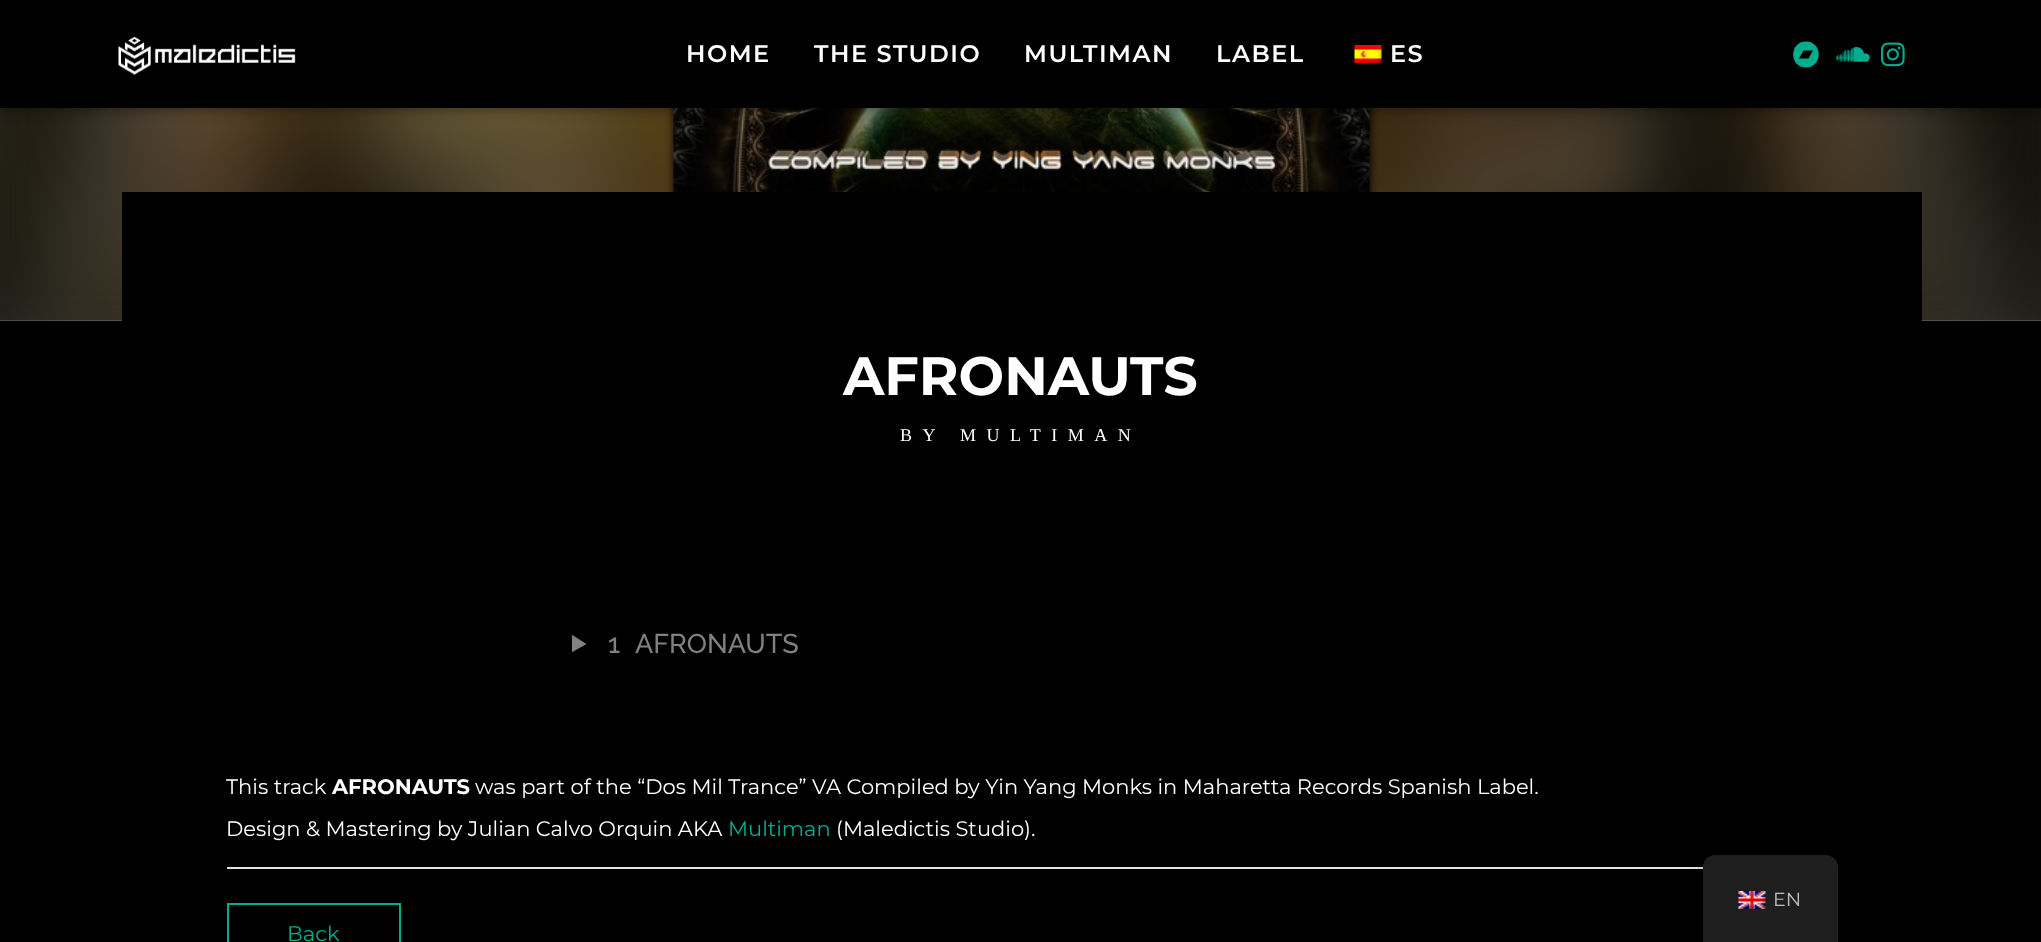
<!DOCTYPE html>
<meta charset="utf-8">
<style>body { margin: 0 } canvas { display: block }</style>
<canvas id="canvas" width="2041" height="942"></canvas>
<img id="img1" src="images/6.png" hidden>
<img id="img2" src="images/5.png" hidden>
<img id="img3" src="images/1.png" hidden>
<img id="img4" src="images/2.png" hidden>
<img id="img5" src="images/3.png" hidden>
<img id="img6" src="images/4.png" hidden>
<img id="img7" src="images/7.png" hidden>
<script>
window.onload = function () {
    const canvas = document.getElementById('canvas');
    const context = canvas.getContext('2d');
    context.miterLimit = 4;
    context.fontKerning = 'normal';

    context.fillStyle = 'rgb(0, 0, 0)';
    context.fillRect(0, 0, 2041, 942);
    context.fillStyle = 'rgb(119, 119, 119)';
    context.fillRect(0, 108, 2041, 213);
    context.drawImage(document.getElementById('img1'), 0, 108, 2041, 213);
    context.fillStyle = 'rgb(0, 0, 0)';
    context.filter = 'blur(4px)';
    context.beginPath();
    context.rect(674, -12, 696, 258);
    context.fill();
    context.filter = 'none';
    context.drawImage(document.getElementById('img2'), 673, 108, 697, 84);
    context.fillStyle = 'rgba(0, 0, 0, 0.5)';
    context.filter = 'blur(7.5px)';
    context.beginPath();
    context.rect(0, 0, 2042, 108);
    context.fill();
    context.filter = 'none';
    context.drawImage(document.getElementById('img3'), 118, 36, 178, 40);
    context.drawImage(document.getElementById('img4'), 1354, 45, 28, 18);
    context.fillStyle = 'rgb(0, 173, 142)';
    context.beginPath();
    context.moveTo(1806, 41.5);
    context.bezierCurveTo(1823, 41.5, 1823, 67.5, 1806, 67.5);
    context.bezierCurveTo(1789, 67.5, 1789, 41.5, 1806, 41.5);
    context.closePath();
    context.moveTo(1808.5, 58.5);
    context.lineTo(1813, 50.5);
    context.lineTo(1803.5, 50.5);
    context.lineTo(1799, 58.5);
    context.closePath();
    context.fill();
    context.drawImage(document.getElementById('img5'), 1836, 47, 34, 15);
    context.drawImage(document.getElementById('img6'), 1881, 42, 24, 25);
    context.fillStyle = 'rgb(0, 0, 0)';
    context.fillRect(122, 192, 1800, 129);
    context.save();
    context.beginPath();
    context.rect(572, 635, 15, 18);
    context.clip();
    context.fillStyle = 'rgb(129, 129, 129)';
    context.beginPath();
    context.moveTo(571.5, 634.5);
    context.lineTo(586.5, 644);
    context.lineTo(571.5, 652.5);
    context.closePath();
    context.fill();
    context.restore();
    context.fillStyle = 'rgb(226, 226, 226)';
    context.fillRect(227, 867, 1476, 2);
    context.strokeStyle = 'rgb(0, 173, 142)';
    context.lineWidth = 2;
    context.strokeRect(228, 904, 172, 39);
    context.fillStyle = 'rgba(0, 0, 0, 0.25)';
    context.filter = 'blur(6px)';
    context.beginPath();
    context.roundRect(1703, 855, 135, 87, 12);
    context.fill();
    context.filter = 'none';
    context.fillStyle = 'rgb(30, 30, 30)';
    context.beginPath();
    context.roundRect(1703, 855, 135, 87, [12, 12, 0, 0]);
    context.fill();
    context.drawImage(document.getElementById('img7'), 1738, 891, 28, 18);
    context.letterSpacing = '1.5px';
    context.font = '600 24px Montserrat';
    context.fillStyle = 'rgb(255, 255, 255)';
    context.fillText('HOME', 686, 62);
    context.fillText('THE STUDIO', 814, 62);
    context.fillText('MULTIMAN', 1024, 62);
    context.fillText('LABEL', 1216, 62);
    context.fillText('ES', 1390, 62);
    context.letterSpacing = '0px';
    context.font = 'bold 54px Montserrat';
    context.fillText('AFRONAUTS', 843, 395);
    context.letterSpacing = '10.5px';
    context.font = '18px Liberation Serif';
    context.fillText('BY', 900, 441);
    context.fillText('MULTIMAN', 960, 441);
    context.letterSpacing = '0px';
    context.font = '500 27px Raleway';
    context.fillStyle = 'rgb(129, 129, 129)';
    context.fillText('1', 608, 653);
    context.fillText('AFRONAUTS', 635, 653);
    context.font = '21px Montserrat';
    context.fillStyle = 'rgb(255, 255, 255)';
    context.fillText('This track', 226, 794);
    context.font = 'bold 21px Montserrat';
    context.fillText('AFRONAUTS', 332, 794);
    context.font = '21px Montserrat';
    context.fillText('was part of the “Dos Mil Trance” VA Compiled by Yin Yang Monks in Maharetta Records Spanish Label.', 475, 794);
    context.fillText('Design & Mastering by Julian Calvo Orquin AKA', 226, 836);
    context.fillStyle = 'rgb(0, 173, 142)';
    context.fillText('Multiman', 728, 836);
    context.fillStyle = 'rgb(255, 255, 255)';
    context.fillText('(Maledictis Studio).', 836, 836);
    context.fillStyle = 'rgb(0, 173, 142)';
    context.fillText('Back', 287, 941);
    context.font = '19px Montserrat';
    context.fillStyle = 'rgb(189, 189, 189)';
    context.fillText('EN', 1773, 906);
};
</script>
